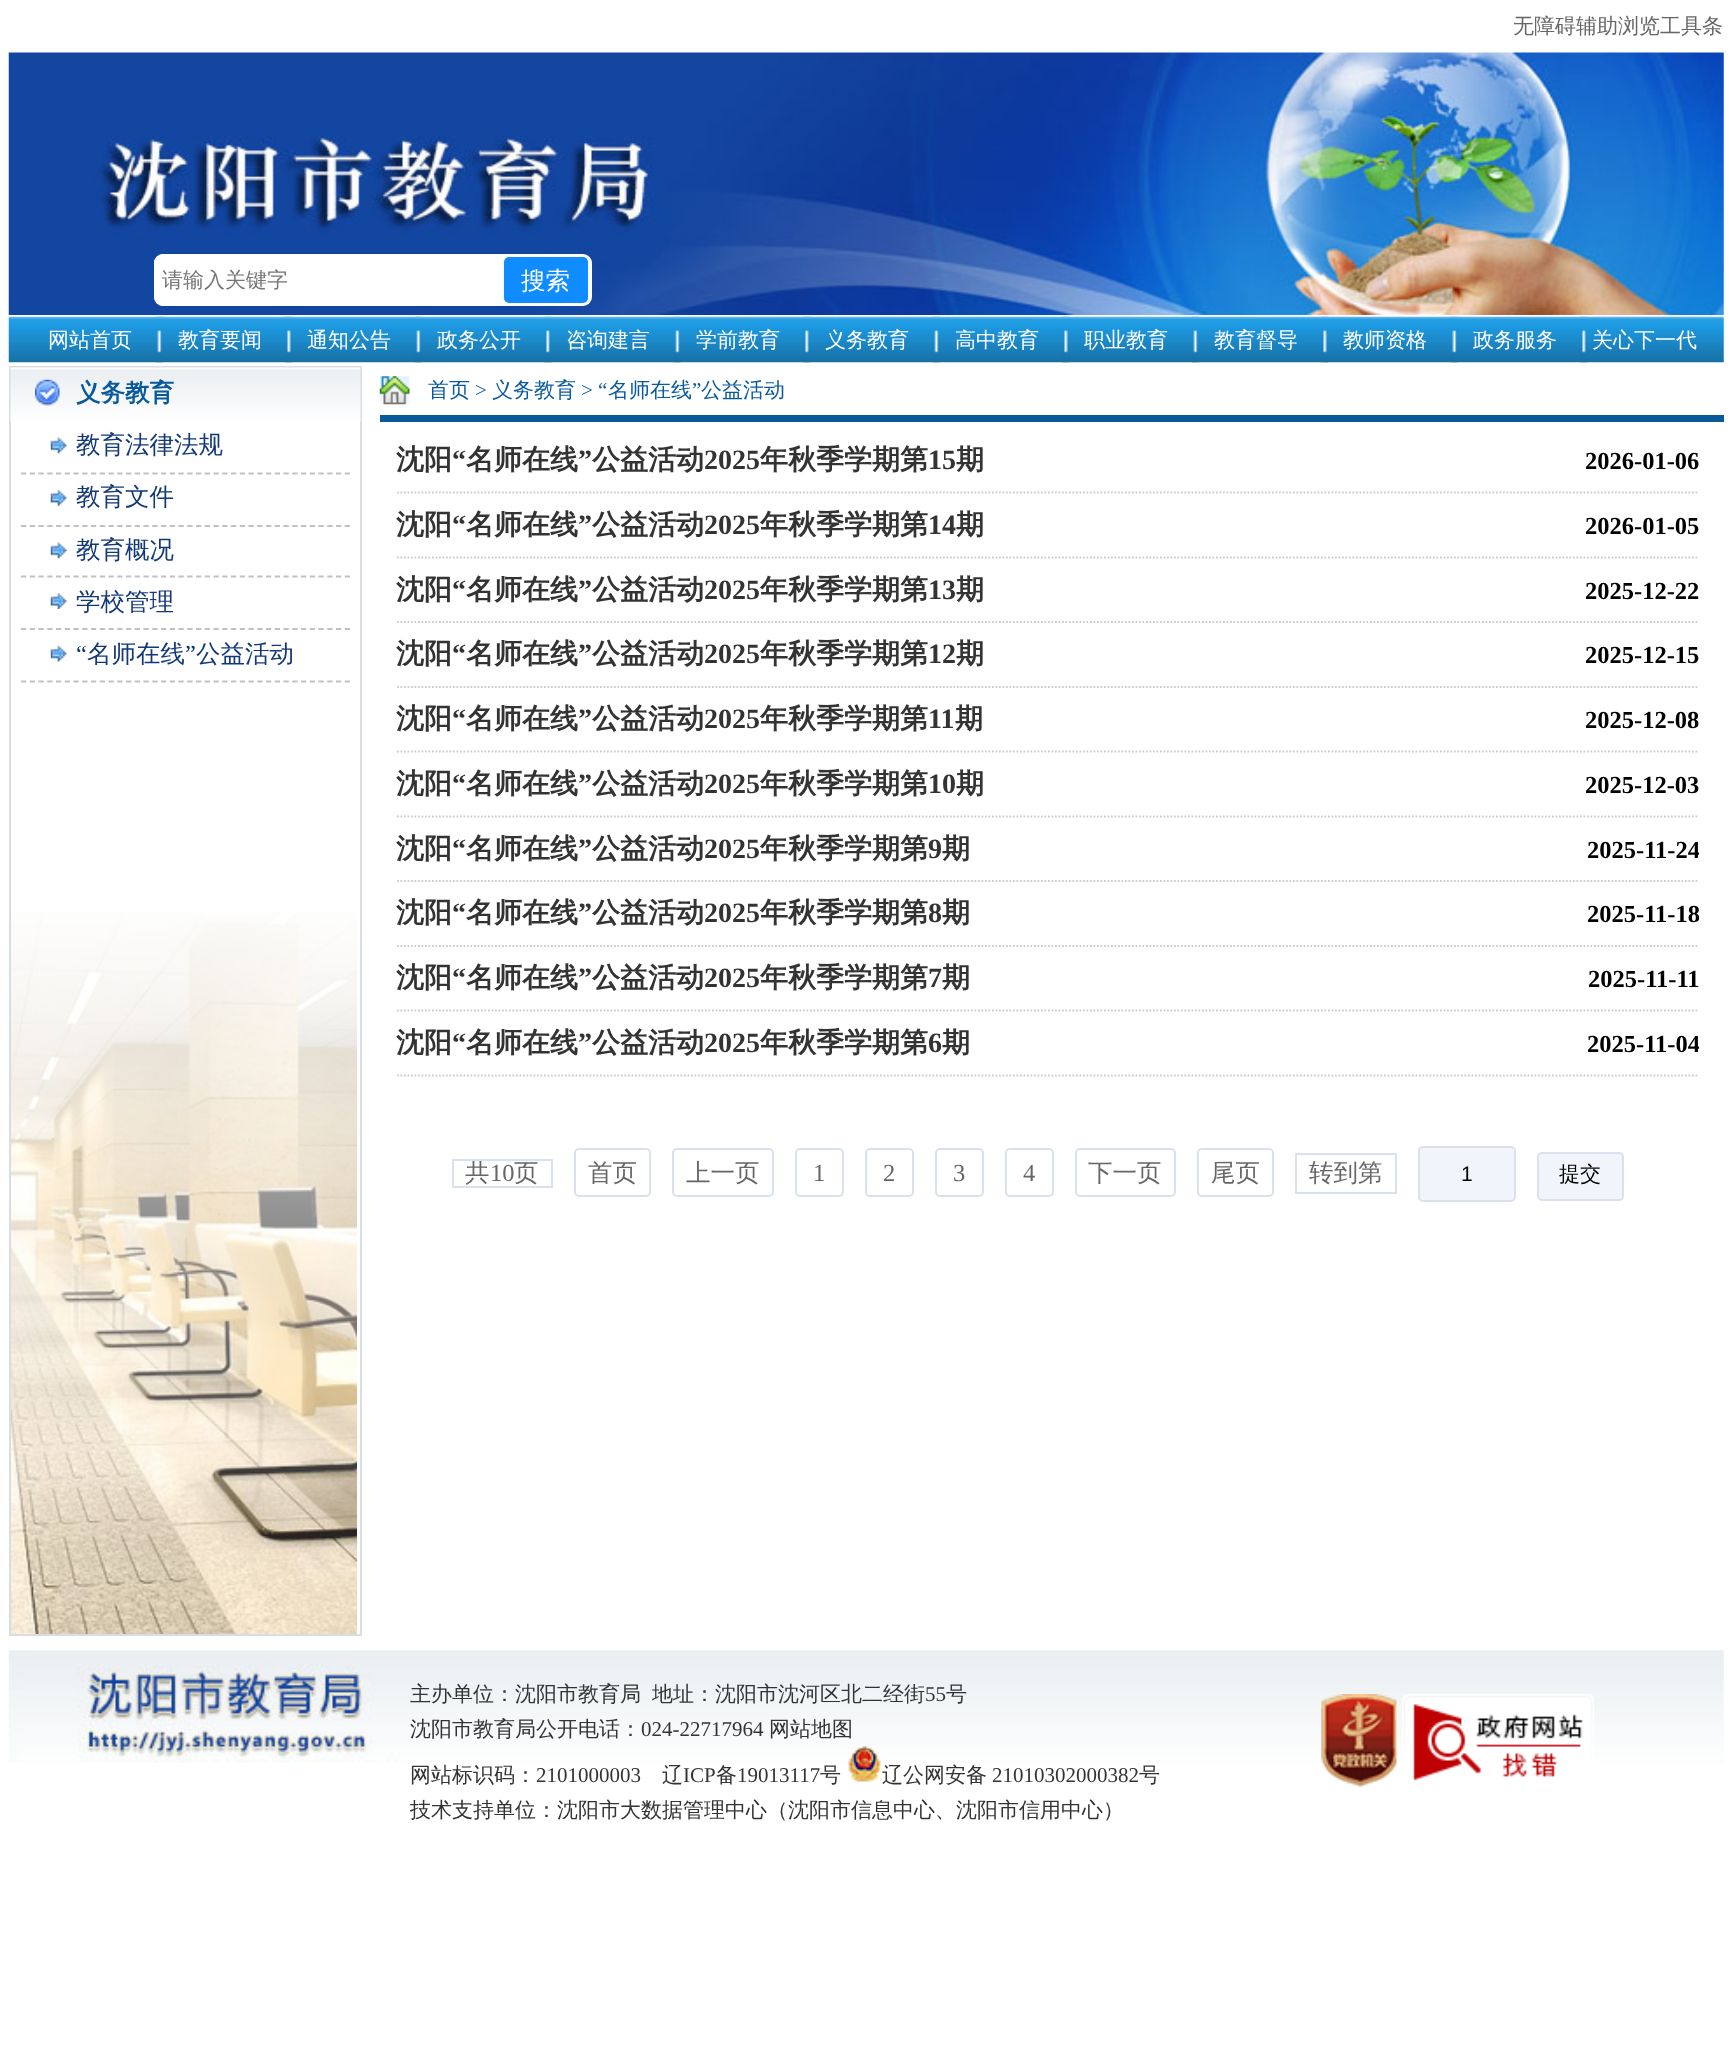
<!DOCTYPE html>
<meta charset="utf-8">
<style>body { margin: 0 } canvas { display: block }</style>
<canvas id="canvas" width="1730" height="2072"></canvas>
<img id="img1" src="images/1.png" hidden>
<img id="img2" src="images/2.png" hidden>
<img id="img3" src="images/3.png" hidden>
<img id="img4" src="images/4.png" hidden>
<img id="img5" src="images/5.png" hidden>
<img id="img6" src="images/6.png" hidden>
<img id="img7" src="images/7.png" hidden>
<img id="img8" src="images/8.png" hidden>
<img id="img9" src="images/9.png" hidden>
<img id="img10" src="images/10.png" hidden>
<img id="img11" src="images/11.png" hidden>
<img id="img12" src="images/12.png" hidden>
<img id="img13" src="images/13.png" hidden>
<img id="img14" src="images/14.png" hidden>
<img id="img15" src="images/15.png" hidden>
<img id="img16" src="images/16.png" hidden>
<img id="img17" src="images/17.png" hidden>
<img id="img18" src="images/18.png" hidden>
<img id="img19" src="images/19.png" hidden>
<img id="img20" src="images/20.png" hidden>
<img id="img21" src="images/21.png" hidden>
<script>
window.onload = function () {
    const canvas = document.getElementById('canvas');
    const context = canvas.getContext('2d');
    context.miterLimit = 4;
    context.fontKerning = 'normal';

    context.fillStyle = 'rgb(255, 255, 255)';
    context.fillRect(0, 0, 1730, 2072);
    context.drawImage(document.getElementById('img1'), 8, 52, 1716, 263);
    context.beginPath();
    context.roundRect(154, 254, 438, 52, 9);
    context.fill();
    context.beginPath();
    context.roundRect(154, 254, 350, 52, [9, 0, 0, 9]);
    context.fill();
    context.fillStyle = 'rgb(15, 140, 255)';
    context.beginPath();
    context.roundRect(504, 257, 84, 46, 5);
    context.fill();
    context.drawImage(document.getElementById('img2'), 8, 316, 1716, 47);
    context.drawImage(document.getElementById('img3'), 155, 316, 8, 47);
    context.drawImage(document.getElementById('img4'), 285, 316, 8, 47);
    context.drawImage(document.getElementById('img5'), 414, 316, 8, 47);
    context.drawImage(document.getElementById('img6'), 544, 316, 8, 47);
    context.drawImage(document.getElementById('img7'), 673, 316, 8, 47);
    context.drawImage(document.getElementById('img6'), 803, 316, 8, 47);
    context.drawImage(document.getElementById('img7'), 932, 316, 8, 47);
    context.drawImage(document.getElementById('img8'), 1062, 316, 8, 47);
    context.drawImage(document.getElementById('img7'), 1191, 316, 8, 47);
    context.drawImage(document.getElementById('img8'), 1321, 316, 8, 47);
    context.drawImage(document.getElementById('img9'), 1450, 316, 8, 47);
    context.drawImage(document.getElementById('img6'), 1580, 316, 8, 47);
    context.drawImage(document.getElementById('img10'), 11, 912, 346, 722);
    context.strokeStyle = 'rgb(216, 221, 225)';
    context.lineWidth = 2;
    context.strokeRect(10, 367, 351, 1268);
    context.drawImage(document.getElementById('img11'), 10, 367, 351, 55);
    context.drawImage(document.getElementById('img12'), 35, 379, 25, 27);
    context.drawImage(document.getElementById('img13'), 50, 437, 17, 17);
    context.beginPath();
    context.moveTo(21, 473.5);
    context.lineTo(350, 473.5);
    context.strokeStyle = 'rgb(193, 193, 193)';
    context.lineWidth = 1.8;
    context.setLineDash([5.25, 3.5]);
    context.stroke();
    context.drawImage(document.getElementById('img14'), 50, 490, 17, 16);
    context.beginPath();
    context.moveTo(21, 526);
    context.lineTo(350, 526);
    context.stroke();
    context.drawImage(document.getElementById('img13'), 50, 542, 17, 17);
    context.beginPath();
    context.moveTo(21, 576.5);
    context.lineTo(350, 576.5);
    context.stroke();
    context.drawImage(document.getElementById('img15'), 50, 593, 17, 16);
    context.beginPath();
    context.moveTo(21, 629);
    context.lineTo(350, 629);
    context.stroke();
    context.drawImage(document.getElementById('img16'), 50, 645, 17, 17);
    context.beginPath();
    context.moveTo(21, 681.5);
    context.lineTo(350, 681.5);
    context.stroke();
    context.drawImage(document.getElementById('img17'), 379, 376, 31, 29);
    context.fillStyle = 'rgb(9, 90, 156)';
    context.fillRect(380, 415, 1344, 7);
    context.beginPath();
    context.moveTo(397, 492.5);
    context.lineTo(1699, 492.5);
    context.strokeStyle = 'rgb(204, 204, 204)';
    context.setLineDash([1.75, 1.75]);
    context.stroke();
    context.beginPath();
    context.moveTo(397, 557.5);
    context.lineTo(1699, 557.5);
    context.stroke();
    context.beginPath();
    context.moveTo(397, 622);
    context.lineTo(1699, 622);
    context.stroke();
    context.beginPath();
    context.moveTo(397, 687);
    context.lineTo(1699, 687);
    context.stroke();
    context.beginPath();
    context.moveTo(397, 751.5);
    context.lineTo(1699, 751.5);
    context.stroke();
    context.beginPath();
    context.moveTo(397, 816.5);
    context.lineTo(1699, 816.5);
    context.stroke();
    context.beginPath();
    context.moveTo(397, 881);
    context.lineTo(1699, 881);
    context.stroke();
    context.beginPath();
    context.moveTo(397, 946);
    context.lineTo(1699, 946);
    context.stroke();
    context.beginPath();
    context.moveTo(397, 1010.5);
    context.lineTo(1699, 1010.5);
    context.stroke();
    context.beginPath();
    context.moveTo(397, 1075.5);
    context.lineTo(1699, 1075.5);
    context.stroke();
    context.strokeStyle = 'rgb(218, 224, 238)';
    context.lineWidth = 2;
    context.setLineDash([]);
    context.strokeRect(453, 1160, 99, 27);
    context.beginPath();
    context.roundRect(575, 1149, 75, 47, 4);
    context.stroke();
    context.beginPath();
    context.roundRect(673, 1149, 100, 47, 4);
    context.stroke();
    context.beginPath();
    context.roundRect(796, 1149, 47, 47, 4);
    context.stroke();
    context.beginPath();
    context.roundRect(866, 1149, 47, 47, 4);
    context.stroke();
    context.beginPath();
    context.roundRect(936, 1149, 47, 47, 4);
    context.stroke();
    context.beginPath();
    context.roundRect(1006, 1149, 47, 47, 4);
    context.stroke();
    context.beginPath();
    context.roundRect(1076, 1149, 99, 47, 4);
    context.stroke();
    context.beginPath();
    context.roundRect(1198, 1149, 75, 47, 4);
    context.stroke();
    context.strokeRect(1296, 1154, 100, 39);
    context.fillStyle = 'rgb(241, 244, 251)';
    context.beginPath();
    context.roundRect(1419, 1147, 96, 54, 4);
    context.fill();
    context.stroke();
    context.beginPath();
    context.roundRect(1538, 1153, 85, 47, 4);
    context.fill();
    context.stroke();
    context.drawImage(document.getElementById('img18'), 8, 1650, 1716, 113);
    context.drawImage(document.getElementById('img19'), 848, 1746, 33, 36);
    context.drawImage(document.getElementById('img20'), 1321, 1694, 76, 94);
    context.drawImage(document.getElementById('img21'), 1402, 1694, 192, 87);
    context.font = '500 21px WenQuanYi Zen Hei';
    context.fillStyle = 'rgb(102, 102, 102)';
    context.fillText('无障碍辅助浏览工具条', 1513, 33);
    context.fillStyle = 'rgb(117, 117, 117)';
    context.fillText('请输入关键字', 162, 287);
    context.font = '500 24.5px WenQuanYi Zen Hei';
    context.fillStyle = 'rgb(255, 255, 255)';
    context.fillText('搜索', 521, 289);
    context.font = '500 21px WenQuanYi Zen Hei';
    context.fillText('网站首页', 48, 347);
    context.fillText('教育要闻', 178, 347);
    context.fillText('通知公告', 307, 347);
    context.fillText('政务公开', 437, 347);
    context.fillText('咨询建言', 566, 347);
    context.fillText('学前教育', 696, 347);
    context.fillText('义务教育', 825, 347);
    context.fillText('高中教育', 955, 347);
    context.fillText('职业教育', 1084, 347);
    context.fillText('教育督导', 1214, 347);
    context.fillText('教师资格', 1343, 347);
    context.fillText('政务服务', 1473, 347);
    context.fillText('关心下一代', 1592, 347);
    context.font = 'bold 24.5px WenQuanYi Zen Hei';
    context.fillStyle = 'rgb(9, 90, 157)';
    context.fillText('义务教育', 76, 401);
    context.font = '500 24.5px WenQuanYi Zen Hei';
    context.fillStyle = 'rgb(19, 56, 121)';
    context.fillText('教育法律法规', 76, 453);
    context.fillText('教育文件', 76, 505);
    context.fillText('教育概况', 76, 558);
    context.fillText('学校管理', 76, 610);
    context.font = '24.5px Liberation Serif';
    context.fillText('“', 76, 662);
    context.font = '500 24.5px WenQuanYi Zen Hei';
    context.fillText('名师在线', 87, 662);
    context.font = '24.5px Liberation Serif';
    context.fillText('”', 185, 662);
    context.font = '500 24.5px WenQuanYi Zen Hei';
    context.fillText('公益活动', 196, 662);
    context.font = '500 21px WenQuanYi Zen Hei';
    context.fillStyle = 'rgb(9, 90, 157)';
    context.fillText('首页', 428, 397);
    context.font = '21px Liberation Serif';
    context.fillText('>', 475, 397);
    context.font = '500 21px WenQuanYi Zen Hei';
    context.fillText('义务教育', 492, 397);
    context.font = '21px Liberation Serif';
    context.fillText('> “', 581, 397);
    context.font = '500 21px WenQuanYi Zen Hei';
    context.fillText('名师在线', 608, 397);
    context.font = '21px Liberation Serif';
    context.fillText('”', 692, 397);
    context.font = '500 21px WenQuanYi Zen Hei';
    context.fillText('公益活动', 701, 397);
    context.font = 'bold 28px WenQuanYi Zen Hei';
    context.fillStyle = 'rgb(51, 51, 51)';
    context.fillText('沈阳', 396, 469);
    context.font = 'bold 28px Liberation Serif';
    context.fillText('“', 452, 469);
    context.font = 'bold 28px WenQuanYi Zen Hei';
    context.fillText('名师在线', 466, 469);
    context.font = 'bold 28px Liberation Serif';
    context.fillText('”', 578, 469);
    context.font = 'bold 28px WenQuanYi Zen Hei';
    context.fillText('公益活动', 592, 469);
    context.font = 'bold 28px Liberation Serif';
    context.fillText('2025', 704, 469);
    context.font = 'bold 28px WenQuanYi Zen Hei';
    context.fillText('年秋季学期第', 760, 469);
    context.font = 'bold 28px Liberation Serif';
    context.fillText('15', 928, 469);
    context.font = 'bold 28px WenQuanYi Zen Hei';
    context.fillText('期', 956, 469);
    context.save();
    context.beginPath();
    context.rect(397, 439, 1302, 42);
    context.clip();
    context.font = 'bold 24.5px Liberation Serif';
    context.fillStyle = 'rgb(0, 0, 0)';
    context.fillText('2026-01-06', 1585, 469);
    context.restore();
    context.fillText('沈阳', 396, 534);
    context.font = 'bold 28px Liberation Serif';
    context.fillText('“', 452, 534);
    context.font = 'bold 28px WenQuanYi Zen Hei';
    context.fillText('名师在线', 466, 534);
    context.font = 'bold 28px Liberation Serif';
    context.fillText('”', 578, 534);
    context.font = 'bold 28px WenQuanYi Zen Hei';
    context.fillText('公益活动', 592, 534);
    context.font = 'bold 28px Liberation Serif';
    context.fillText('2025', 704, 534);
    context.font = 'bold 28px WenQuanYi Zen Hei';
    context.fillText('年秋季学期第', 760, 534);
    context.font = 'bold 28px Liberation Serif';
    context.fillText('14', 928, 534);
    context.font = 'bold 28px WenQuanYi Zen Hei';
    context.fillText('期', 956, 534);
    context.font = 'bold 24.5px Liberation Serif';
    context.fillStyle = 'rgb(0, 0, 0)';
    context.fillText('2026-01-05', 1585, 534);
    context.font = 'bold 28px WenQuanYi Zen Hei';
    context.fillStyle = 'rgb(51, 51, 51)';
    context.fillText('沈阳', 396, 599);
    context.font = 'bold 28px Liberation Serif';
    context.fillText('“', 452, 599);
    context.font = 'bold 28px WenQuanYi Zen Hei';
    context.fillText('名师在线', 466, 599);
    context.font = 'bold 28px Liberation Serif';
    context.fillText('”', 578, 599);
    context.font = 'bold 28px WenQuanYi Zen Hei';
    context.fillText('公益活动', 592, 599);
    context.font = 'bold 28px Liberation Serif';
    context.fillText('2025', 704, 599);
    context.font = 'bold 28px WenQuanYi Zen Hei';
    context.fillText('年秋季学期第', 760, 599);
    context.font = 'bold 28px Liberation Serif';
    context.fillText('13', 928, 599);
    context.font = 'bold 28px WenQuanYi Zen Hei';
    context.fillText('期', 956, 599);
    context.font = 'bold 24.5px Liberation Serif';
    context.fillStyle = 'rgb(0, 0, 0)';
    context.fillText('2025-12-22', 1585, 599);
    context.font = 'bold 28px WenQuanYi Zen Hei';
    context.fillStyle = 'rgb(51, 51, 51)';
    context.fillText('沈阳', 396, 663);
    context.font = 'bold 28px Liberation Serif';
    context.fillText('“', 452, 663);
    context.font = 'bold 28px WenQuanYi Zen Hei';
    context.fillText('名师在线', 466, 663);
    context.font = 'bold 28px Liberation Serif';
    context.fillText('”', 578, 663);
    context.font = 'bold 28px WenQuanYi Zen Hei';
    context.fillText('公益活动', 592, 663);
    context.font = 'bold 28px Liberation Serif';
    context.fillText('2025', 704, 663);
    context.font = 'bold 28px WenQuanYi Zen Hei';
    context.fillText('年秋季学期第', 760, 663);
    context.font = 'bold 28px Liberation Serif';
    context.fillText('12', 928, 663);
    context.font = 'bold 28px WenQuanYi Zen Hei';
    context.fillText('期', 956, 663);
    context.font = 'bold 24.5px Liberation Serif';
    context.fillStyle = 'rgb(0, 0, 0)';
    context.fillText('2025-12-15', 1585, 663);
    context.font = 'bold 28px WenQuanYi Zen Hei';
    context.fillStyle = 'rgb(51, 51, 51)';
    context.fillText('沈阳', 396, 728);
    context.font = 'bold 28px Liberation Serif';
    context.fillText('“', 452, 728);
    context.font = 'bold 28px WenQuanYi Zen Hei';
    context.fillText('名师在线', 466, 728);
    context.font = 'bold 28px Liberation Serif';
    context.fillText('”', 578, 728);
    context.font = 'bold 28px WenQuanYi Zen Hei';
    context.fillText('公益活动', 592, 728);
    context.font = 'bold 28px Liberation Serif';
    context.fillText('2025', 704, 728);
    context.font = 'bold 28px WenQuanYi Zen Hei';
    context.fillText('年秋季学期第', 760, 728);
    context.font = 'bold 28px Liberation Serif';
    context.fillText('11', 928, 728);
    context.font = 'bold 28px WenQuanYi Zen Hei';
    context.fillText('期', 955, 728);
    context.save();
    context.beginPath();
    context.rect(397, 698, 1302, 42);
    context.clip();
    context.font = 'bold 24.5px Liberation Serif';
    context.fillStyle = 'rgb(0, 0, 0)';
    context.fillText('2025-12-08', 1585, 728);
    context.restore();
    context.fillText('沈阳', 396, 793);
    context.font = 'bold 28px Liberation Serif';
    context.fillText('“', 452, 793);
    context.font = 'bold 28px WenQuanYi Zen Hei';
    context.fillText('名师在线', 466, 793);
    context.font = 'bold 28px Liberation Serif';
    context.fillText('”', 578, 793);
    context.font = 'bold 28px WenQuanYi Zen Hei';
    context.fillText('公益活动', 592, 793);
    context.font = 'bold 28px Liberation Serif';
    context.fillText('2025', 704, 793);
    context.font = 'bold 28px WenQuanYi Zen Hei';
    context.fillText('年秋季学期第', 760, 793);
    context.font = 'bold 28px Liberation Serif';
    context.fillText('10', 928, 793);
    context.font = 'bold 28px WenQuanYi Zen Hei';
    context.fillText('期', 956, 793);
    context.save();
    context.beginPath();
    context.rect(397, 763, 1302, 42);
    context.clip();
    context.font = 'bold 24.5px Liberation Serif';
    context.fillStyle = 'rgb(0, 0, 0)';
    context.fillText('2025-12-03', 1585, 793);
    context.restore();
    context.fillText('沈阳', 396, 858);
    context.font = 'bold 28px Liberation Serif';
    context.fillText('“', 452, 858);
    context.font = 'bold 28px WenQuanYi Zen Hei';
    context.fillText('名师在线', 466, 858);
    context.font = 'bold 28px Liberation Serif';
    context.fillText('”', 578, 858);
    context.font = 'bold 28px WenQuanYi Zen Hei';
    context.fillText('公益活动', 592, 858);
    context.font = 'bold 28px Liberation Serif';
    context.fillText('2025', 704, 858);
    context.font = 'bold 28px WenQuanYi Zen Hei';
    context.fillText('年秋季学期第', 760, 858);
    context.font = 'bold 28px Liberation Serif';
    context.fillText('9', 928, 858);
    context.font = 'bold 28px WenQuanYi Zen Hei';
    context.fillText('期', 942, 858);
    context.save();
    context.beginPath();
    context.rect(397, 828, 1302, 42);
    context.clip();
    context.font = 'bold 24.5px Liberation Serif';
    context.fillStyle = 'rgb(0, 0, 0)';
    context.fillText('2025-11-24', 1587, 858);
    context.restore();
    context.fillText('沈阳', 396, 922);
    context.font = 'bold 28px Liberation Serif';
    context.fillText('“', 452, 922);
    context.font = 'bold 28px WenQuanYi Zen Hei';
    context.fillText('名师在线', 466, 922);
    context.font = 'bold 28px Liberation Serif';
    context.fillText('”', 578, 922);
    context.font = 'bold 28px WenQuanYi Zen Hei';
    context.fillText('公益活动', 592, 922);
    context.font = 'bold 28px Liberation Serif';
    context.fillText('2025', 704, 922);
    context.font = 'bold 28px WenQuanYi Zen Hei';
    context.fillText('年秋季学期第', 760, 922);
    context.font = 'bold 28px Liberation Serif';
    context.fillText('8', 928, 922);
    context.font = 'bold 28px WenQuanYi Zen Hei';
    context.fillText('期', 942, 922);
    context.save();
    context.beginPath();
    context.rect(397, 893, 1302, 42);
    context.clip();
    context.font = 'bold 24.5px Liberation Serif';
    context.fillStyle = 'rgb(0, 0, 0)';
    context.fillText('2025-11-18', 1587, 922);
    context.restore();
    context.fillText('沈阳', 396, 987);
    context.font = 'bold 28px Liberation Serif';
    context.fillText('“', 452, 987);
    context.font = 'bold 28px WenQuanYi Zen Hei';
    context.fillText('名师在线', 466, 987);
    context.font = 'bold 28px Liberation Serif';
    context.fillText('”', 578, 987);
    context.font = 'bold 28px WenQuanYi Zen Hei';
    context.fillText('公益活动', 592, 987);
    context.font = 'bold 28px Liberation Serif';
    context.fillText('2025', 704, 987);
    context.font = 'bold 28px WenQuanYi Zen Hei';
    context.fillText('年秋季学期第', 760, 987);
    context.font = 'bold 28px Liberation Serif';
    context.fillText('7', 928, 987);
    context.font = 'bold 28px WenQuanYi Zen Hei';
    context.fillText('期', 942, 987);
    context.font = 'bold 24.5px Liberation Serif';
    context.fillStyle = 'rgb(0, 0, 0)';
    context.fillText('2025-11-11', 1588, 987);
    context.font = 'bold 28px WenQuanYi Zen Hei';
    context.fillStyle = 'rgb(51, 51, 51)';
    context.fillText('沈阳', 396, 1052);
    context.font = 'bold 28px Liberation Serif';
    context.fillText('“', 452, 1052);
    context.font = 'bold 28px WenQuanYi Zen Hei';
    context.fillText('名师在线', 466, 1052);
    context.font = 'bold 28px Liberation Serif';
    context.fillText('”', 578, 1052);
    context.font = 'bold 28px WenQuanYi Zen Hei';
    context.fillText('公益活动', 592, 1052);
    context.font = 'bold 28px Liberation Serif';
    context.fillText('2025', 704, 1052);
    context.font = 'bold 28px WenQuanYi Zen Hei';
    context.fillText('年秋季学期第', 760, 1052);
    context.font = 'bold 28px Liberation Serif';
    context.fillText('6', 928, 1052);
    context.font = 'bold 28px WenQuanYi Zen Hei';
    context.fillText('期', 942, 1052);
    context.save();
    context.beginPath();
    context.rect(397, 1022, 1302, 42);
    context.clip();
    context.font = 'bold 24.5px Liberation Serif';
    context.fillStyle = 'rgb(0, 0, 0)';
    context.fillText('2025-11-04', 1587, 1052);
    context.restore();
    context.font = '500 24.5px WenQuanYi Zen Hei';
    context.fillStyle = 'rgb(102, 102, 102)';
    context.fillText('共', 465, 1181);
    context.font = '24.5px Liberation Serif';
    context.fillText('10', 490, 1181);
    context.font = '500 24.5px WenQuanYi Zen Hei';
    context.fillText('页', 514, 1181);
    context.fillText('首页', 588, 1181);
    context.fillText('上一页', 686, 1181);
    context.font = '24.5px Liberation Serif';
    context.fillText('1', 813, 1181);
    context.fillText('2', 883, 1181);
    context.fillText('3', 953, 1181);
    context.fillText('4', 1023, 1181);
    context.font = '500 24.5px WenQuanYi Zen Hei';
    context.fillText('下一页', 1088, 1181);
    context.fillText('尾页', 1211, 1181);
    context.fillText('转到第', 1309, 1181);
    context.font = '21px Liberation Sans';
    context.fillStyle = 'rgb(0, 0, 0)';
    context.fillText('1', 1461, 1181);
    context.font = '500 21px WenQuanYi Zen Hei';
    context.fillText('提交', 1559, 1181);
    context.fillStyle = 'rgb(51, 51, 51)';
    context.fillText('主办单位：沈阳市教育局', 410, 1701);
    context.fillText('地址：沈阳市沈河区北二经街', 652, 1701);
    context.font = '21px Liberation Serif';
    context.fillText('55', 925, 1701);
    context.font = '500 21px WenQuanYi Zen Hei';
    context.fillText('号', 946, 1701);
    context.fillText('沈阳市教育局公开电话：', 410, 1736);
    context.font = '21px Liberation Serif';
    context.fillText('024-22717964', 641, 1736);
    context.font = '500 21px WenQuanYi Zen Hei';
    context.fillText('网站地图', 769, 1736);
    context.fillText('网站标识码：', 410, 1782);
    context.font = '21px Liberation Serif';
    context.fillText('2101000003', 536, 1782);
    context.font = '500 21px WenQuanYi Zen Hei';
    context.fillText('辽', 662, 1782);
    context.font = '21px Liberation Serif';
    context.fillText('ICP', 683, 1782);
    context.font = '500 21px WenQuanYi Zen Hei';
    context.fillText('备', 716, 1782);
    context.font = '21px Liberation Serif';
    context.fillText('19013117', 737, 1782);
    context.font = '500 21px WenQuanYi Zen Hei';
    context.fillText('号', 820, 1782);
    context.fillText('辽公网安备', 882, 1782);
    context.font = '21px Liberation Serif';
    context.fillText('21010302000382', 992, 1782);
    context.font = '500 21px WenQuanYi Zen Hei';
    context.fillText('号', 1139, 1782);
    context.fillText('技术支持单位：沈阳市大数据管理中心（沈阳市信息中心、沈阳市信用中心）', 410, 1817);
};
</script>
